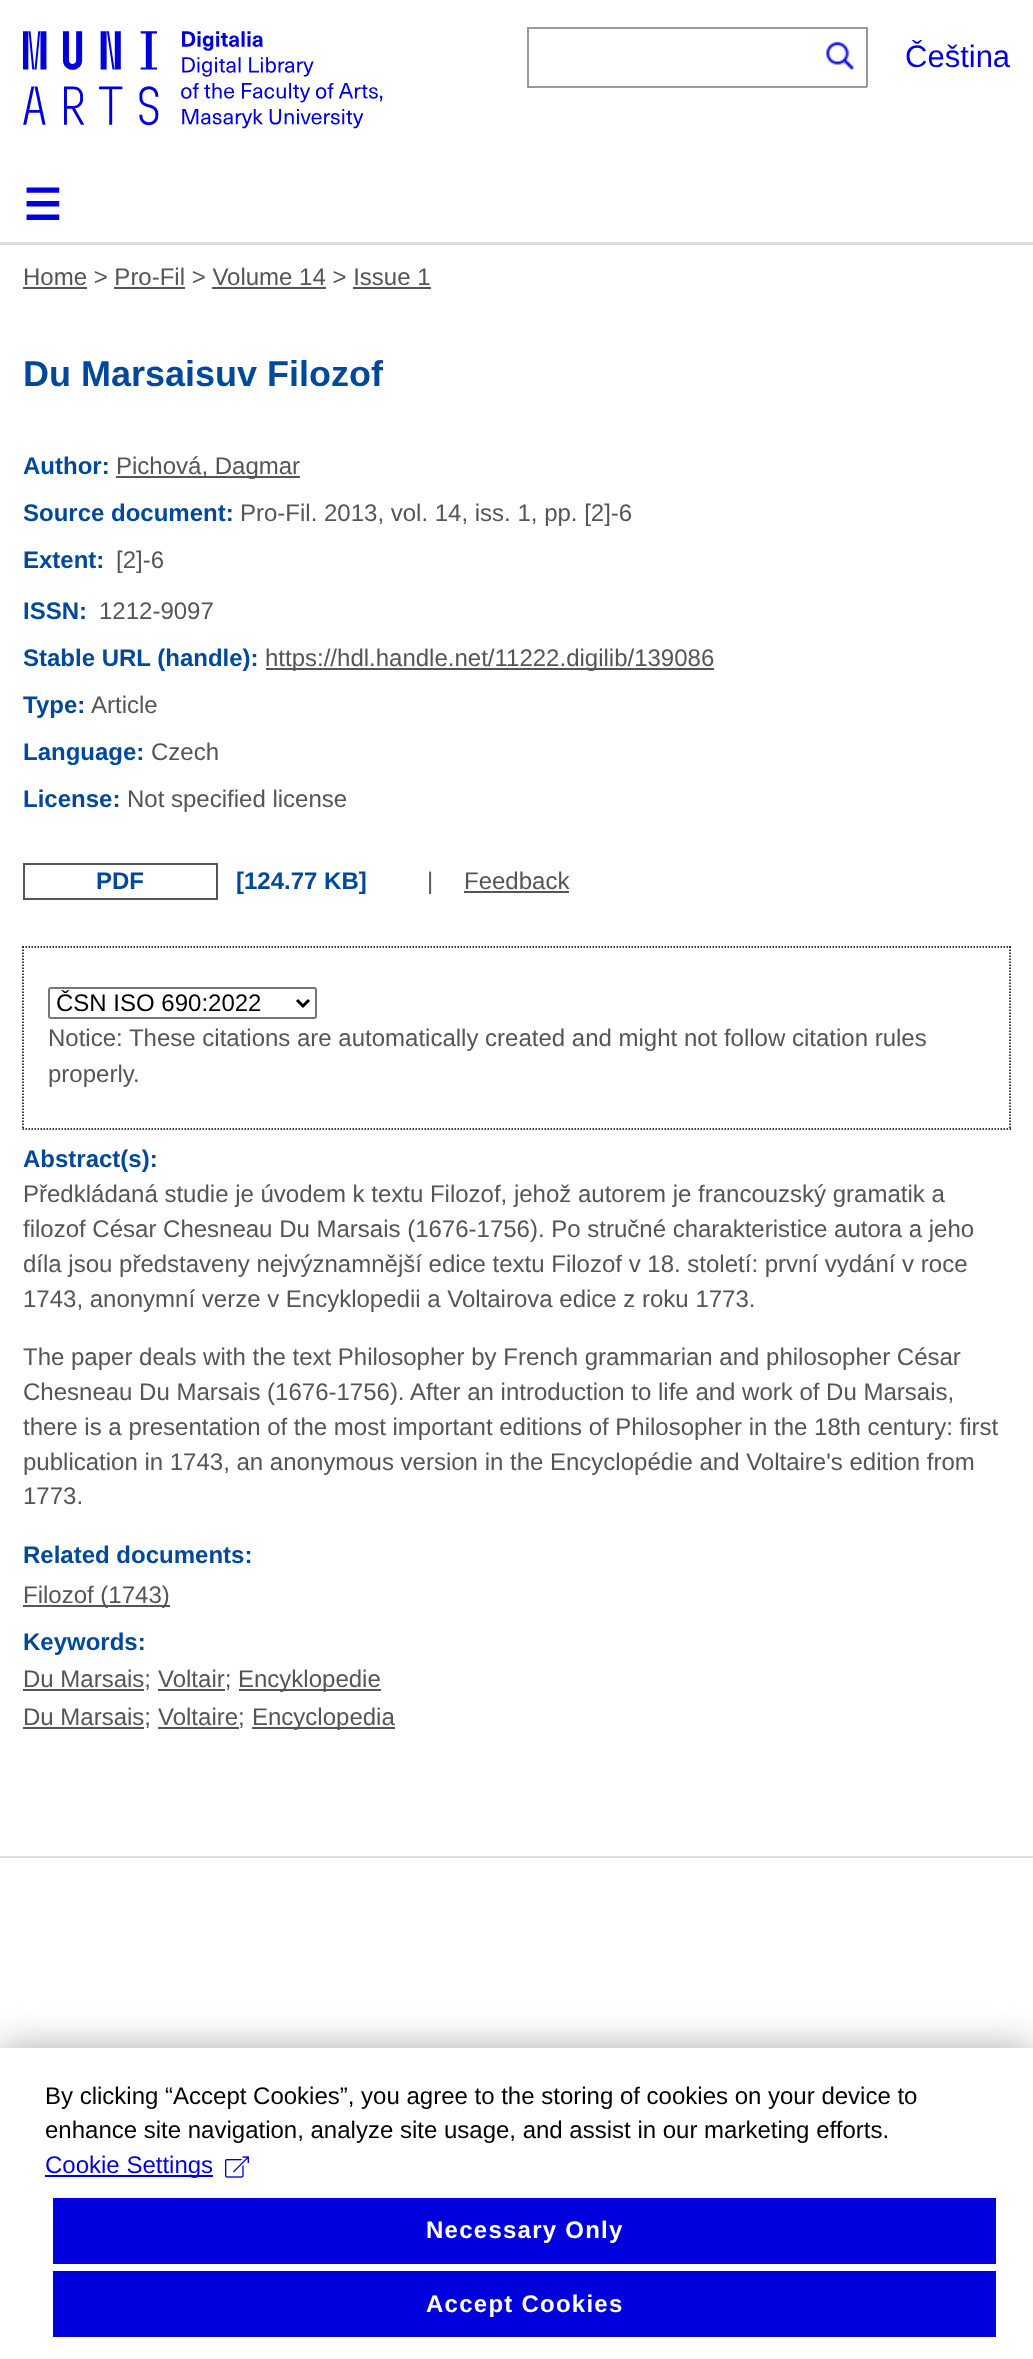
<!DOCTYPE html>
<meta charset="utf-8">
<style>body { margin: 0 } canvas { display: block }</style>
<canvas id="canvas" width="1033" height="2359"></canvas>
<img id="img1" src="images/1.png" hidden>
<img id="img2" src="images/2.png" hidden>
<img id="img3" src="images/3.png" hidden>
<script>
window.onload = function () {
    const canvas = document.getElementById('canvas');
    const context = canvas.getContext('2d');
    context.miterLimit = 4;
    context.fontKerning = 'normal';

    context.fillStyle = 'rgb(255, 255, 255)';
    context.fillRect(0, 0, 1033, 2359);
    context.fillStyle = 'rgb(220, 220, 220)';
    context.fillRect(0, 242, 1033, 3);
    context.drawImage(document.getElementById('img1'), 23, 31, 360, 98);
    context.fillStyle = 'rgb(153, 153, 153)';
    context.fillRect(527, 27, 340, 2);
    context.fillRect(527, 86, 288, 2);
    context.fillRect(527, 27, 2, 60);
    context.drawImage(document.getElementById('img2'), 826, 42, 28, 29);
    context.fillRect(866, 27, 2, 60);
    context.fillRect(815, 86, 52, 2);
    context.fillStyle = 'rgb(221, 221, 221)';
    context.fillRect(0, 1856, 1033, 2);
    context.fillStyle = 'rgb(85, 85, 85)';
    context.fillRect(23, 287, 64, 2);
    context.fillRect(114, 287, 71, 2);
    context.fillRect(212, 287, 114, 2);
    context.fillRect(353, 287, 78, 2);
    context.fillRect(116, 476, 184, 2);
    context.fillRect(266, 668, 448, 2);
    context.strokeStyle = 'rgb(85, 85, 85)';
    context.lineWidth = 2;
    context.strokeRect(24, 864, 193, 35);
    context.fillRect(464, 891, 105, 2);
    context.beginPath();
    context.moveTo(22.5, 947);
    context.lineTo(1011, 947);
    context.strokeStyle = 'rgb(0, 0, 0)';
    context.lineWidth = 1.5;
    context.setLineDash([1.5, 1.5]);
    context.stroke();
    context.beginPath();
    context.moveTo(1010, 946.5);
    context.lineTo(1010, 1129.5);
    context.stroke();
    context.beginPath();
    context.moveTo(22.5, 1129);
    context.lineTo(1011, 1129);
    context.stroke();
    context.beginPath();
    context.moveTo(23, 946.5);
    context.lineTo(23, 1129.5);
    context.stroke();
    context.beginPath();
    context.roundRect(49, 988, 267, 30, 2);
    context.strokeStyle = 'rgb(118, 118, 118)';
    context.lineWidth = 2;
    context.setLineDash([]);
    context.stroke();
    context.beginPath();
    context.moveTo(297, 1000);
    context.lineTo(303, 1006);
    context.lineTo(309, 1000);
    context.strokeStyle = 'rgb(0, 0, 0)';
    context.lineWidth = 3;
    context.stroke();
    context.fillRect(23, 1605, 147, 2);
    context.fillRect(23, 1689, 121, 2);
    context.fillRect(158, 1689, 67, 2);
    context.fillRect(239, 1689, 142, 2);
    context.fillRect(23, 1727, 121, 2);
    context.fillRect(158, 1727, 81, 2);
    context.fillRect(252, 1727, 143, 2);
    context.fillStyle = 'rgb(170, 170, 170)';
    context.filter = 'blur(19px)';
    context.beginPath();
    context.rect(0, 2048, 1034, 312);
    context.fill();
    context.filter = 'none';
    context.fillStyle = 'rgb(255, 255, 255)';
    context.fillRect(0, 2048, 1033, 311);
    context.fillStyle = 'rgb(0, 0, 220)';
    context.fillRect(45, 2175, 168, 2);
    context.drawImage(document.getElementById('img3'), 225, 2156, 24, 22);
    context.fillRect(53, 2198, 943, 66);
    context.fillRect(53, 2271, 943, 66);
    context.font = '31px Liberation Sans';
    context.fillText('Čeština', 905, 67);
    context.font = 'bold 43px DejaVu Sans';
    context.fillText('☰', 23, 220);
    context.font = '24px Liberation Sans';
    context.fillStyle = 'rgb(85, 85, 85)';
    context.fillText('Home > Pro-Fil > Volume 14 > Issue 1', 23, 285);
    context.font = 'bold 36px Liberation Sans';
    context.fillStyle = 'rgb(0, 72, 153)';
    context.fillText('Du Marsaisuv Filozof', 23, 386);
    context.font = 'bold 24px Liberation Sans';
    context.fillText('Author:', 23, 474);
    context.font = '24px Liberation Sans';
    context.fillStyle = 'rgb(85, 85, 85)';
    context.fillText('Pichová, Dagmar', 116, 474);
    context.font = 'bold 24px Liberation Sans';
    context.fillStyle = 'rgb(0, 72, 153)';
    context.fillText('Source document:', 23, 521);
    context.font = '24px Liberation Sans';
    context.fillStyle = 'rgb(85, 85, 85)';
    context.fillText('Pro-Fil. 2013, vol. 14, iss. 1, pp. [2]-6', 240, 521);
    context.font = 'bold 24px Liberation Sans';
    context.fillStyle = 'rgb(0, 72, 153)';
    context.fillText('Extent:', 23, 568);
    context.font = '24px Liberation Sans';
    context.fillStyle = 'rgb(85, 85, 85)';
    context.fillText('[2]-6', 116, 568);
    context.font = 'bold 24px Liberation Sans';
    context.fillStyle = 'rgb(0, 72, 153)';
    context.fillText('ISSN:', 23, 619);
    context.font = '24px Liberation Sans';
    context.fillStyle = 'rgb(85, 85, 85)';
    context.fillText('1212-9097', 99, 619);
    context.font = 'bold 24px Liberation Sans';
    context.fillStyle = 'rgb(0, 72, 153)';
    context.fillText('Stable URL (handle):', 23, 666);
    context.font = '24px Liberation Sans';
    context.fillStyle = 'rgb(85, 85, 85)';
    context.fillText('https://hdl.handle.net/11222.digilib/139086', 265, 666);
    context.font = 'bold 24px Liberation Sans';
    context.fillStyle = 'rgb(0, 72, 153)';
    context.fillText('Type:', 23, 713);
    context.font = '24px Liberation Sans';
    context.fillStyle = 'rgb(85, 85, 85)';
    context.fillText('Article', 91, 713);
    context.font = 'bold 24px Liberation Sans';
    context.fillStyle = 'rgb(0, 72, 153)';
    context.fillText('Language:', 23, 760);
    context.font = '24px Liberation Sans';
    context.fillStyle = 'rgb(85, 85, 85)';
    context.fillText('Czech', 151, 760);
    context.font = 'bold 24px Liberation Sans';
    context.fillStyle = 'rgb(0, 72, 153)';
    context.fillText('License:', 23, 807);
    context.font = '24px Liberation Sans';
    context.fillStyle = 'rgb(85, 85, 85)';
    context.fillText('Not specified license', 127, 807);
    context.font = 'bold 24px Liberation Sans';
    context.fillStyle = 'rgb(0, 72, 153)';
    context.fillText('PDF', 96, 889);
    context.fillText('[124.77 KB]', 236, 889);
    context.font = '24px Liberation Sans';
    context.fillStyle = 'rgb(85, 85, 85)';
    context.fillText('|', 427, 889);
    context.fillText('Feedback', 464, 889);
    context.fillStyle = 'rgb(0, 0, 0)';
    context.fillText('ČSN ISO 690:2022', 56, 1011);
    context.fillStyle = 'rgb(85, 85, 85)';
    context.fillText('Notice: These citations are automatically created and might not follow citation rules', 48, 1046);
    context.fillText('properly.', 48, 1082);
    context.font = 'bold 24px Liberation Sans';
    context.fillStyle = 'rgb(0, 72, 153)';
    context.fillText('Abstract(s):', 23, 1167);
    context.font = '24px Liberation Sans';
    context.fillStyle = 'rgb(85, 85, 85)';
    context.fillText('Předkládaná studie je úvodem k textu Filozof, jehož autorem je francouzský gramatik a', 23, 1202);
    context.fillText('filozof César Chesneau Du Marsais (1676-1756). Po stručné charakteristice autora a jeho', 23, 1237);
    context.fillText('díla jsou představeny nejvýznamnější edice textu Filozof v 18. století: první vydání v roce', 23, 1272);
    context.fillText('1743, anonymní verze v Encyklopedii a Voltairova edice z roku 1773.', 23, 1307);
    context.fillText('The paper deals with the text Philosopher by French grammarian and philosopher César', 23, 1365);
    context.fillText('Chesneau Du Marsais (1676-1756). After an introduction to life and work of Du Marsais,', 23, 1400);
    context.fillText('there is a presentation of the most important editions of Philosopher in the 18th century: first', 23, 1435);
    context.fillText('publication in 1743, an anonymous version in the Encyclopédie and Voltaire\'s edition from', 23, 1470);
    context.fillText('1773.', 23, 1504);
    context.font = 'bold 24px Liberation Sans';
    context.fillStyle = 'rgb(0, 72, 153)';
    context.fillText('Related documents:', 23, 1563);
    context.font = '24px Liberation Sans';
    context.fillStyle = 'rgb(85, 85, 85)';
    context.fillText('Filozof (1743)', 23, 1603);
    context.font = 'bold 24px Liberation Sans';
    context.fillStyle = 'rgb(0, 72, 153)';
    context.fillText('Keywords:', 23, 1650);
    context.font = '24px Liberation Sans';
    context.fillStyle = 'rgb(85, 85, 85)';
    context.fillText('Du Marsais;', 23, 1687);
    context.fillText('Voltair;', 158, 1687);
    context.fillText('Encyklopedie', 238, 1687);
    context.fillText('Du Marsais;', 23, 1725);
    context.fillText('Voltaire;', 158, 1725);
    context.fillText('Encyclopedia', 252, 1725);
    context.fillStyle = 'rgb(0, 0, 0)';
    context.fillText('By clicking “Accept Cookies”, you agree to the storing of cookies on your device to', 45, 2104);
    context.fillText('enhance site navigation, analyze site usage, and assist in our marketing efforts.', 45, 2138);
    context.fillStyle = 'rgb(0, 0, 220)';
    context.fillText('Cookie Settings', 45, 2173);
    context.letterSpacing = '1.25px';
    context.font = 'bold 24px Liberation Sans';
    context.fillStyle = 'rgb(255, 255, 255)';
    context.fillText('Necessary Only', 426, 2238);
    context.fillText('Accept Cookies', 426, 2312);
};
</script>
